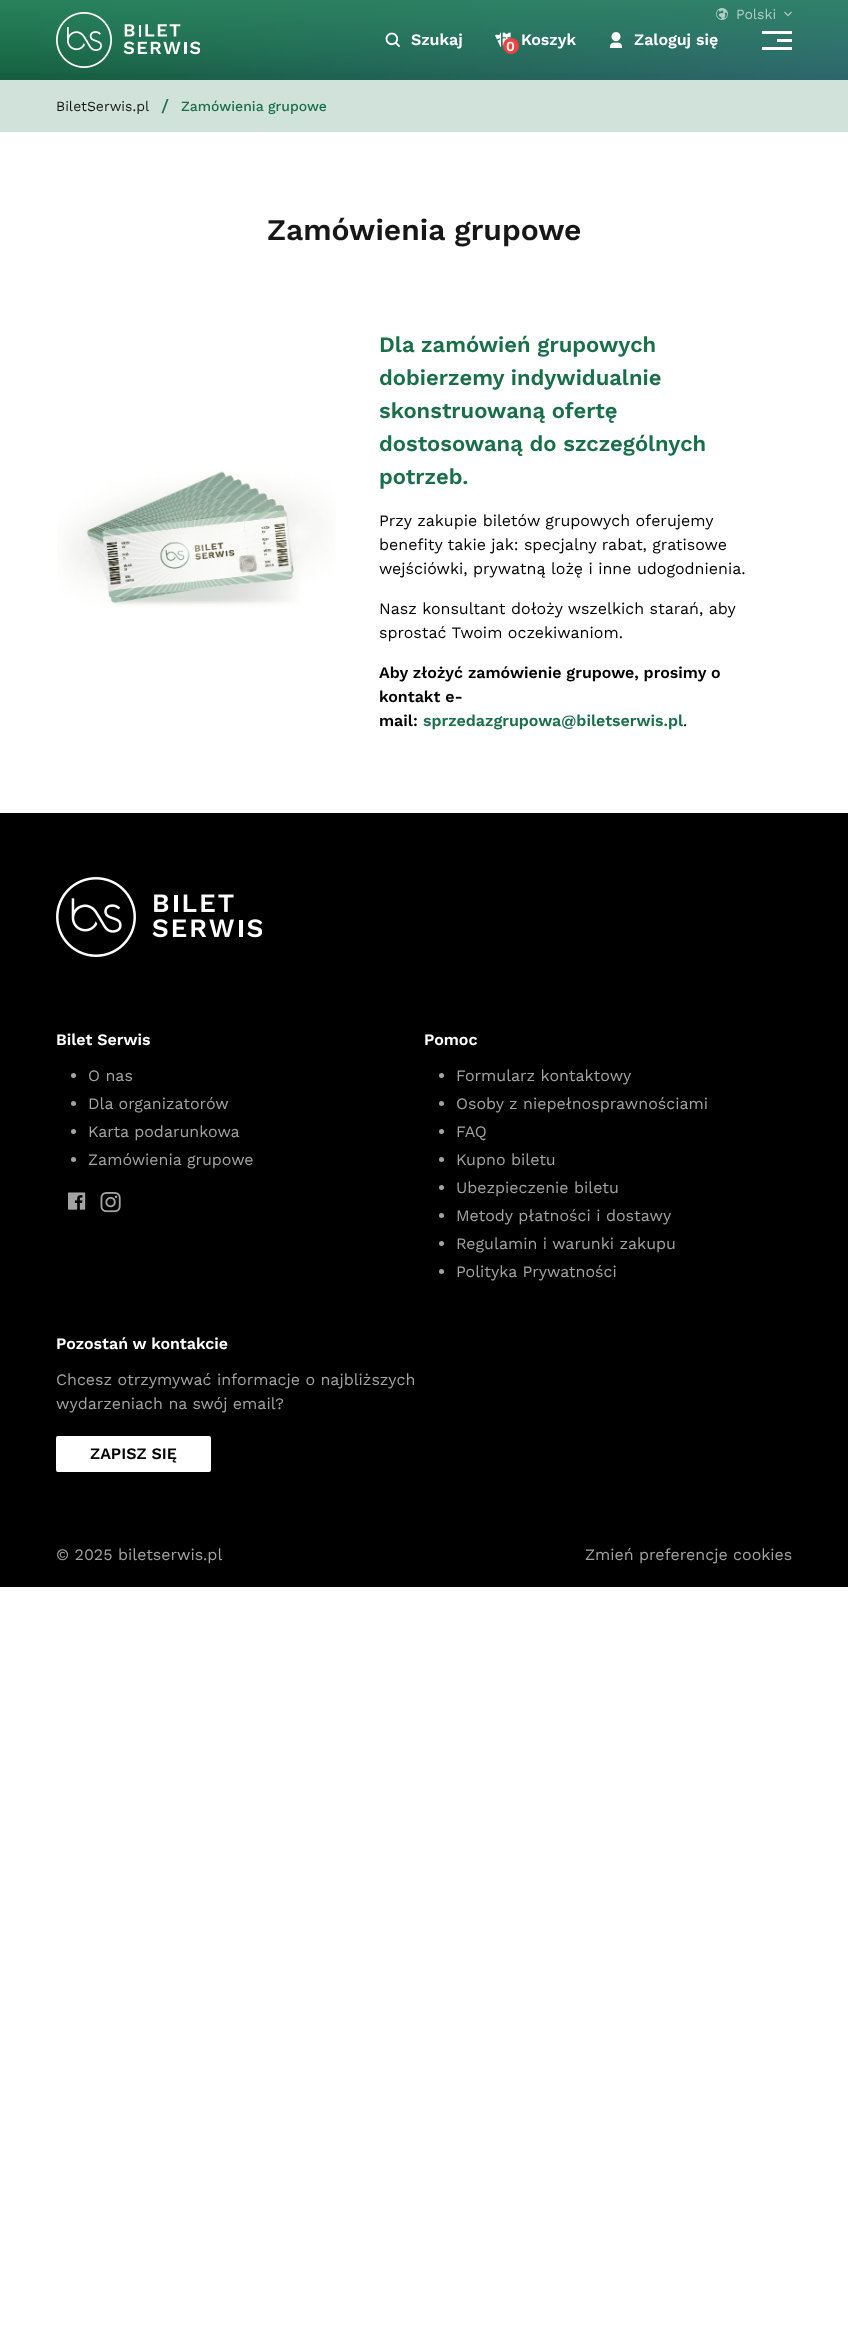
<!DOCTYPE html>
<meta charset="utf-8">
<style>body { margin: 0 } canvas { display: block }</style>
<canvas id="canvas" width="848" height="2331"></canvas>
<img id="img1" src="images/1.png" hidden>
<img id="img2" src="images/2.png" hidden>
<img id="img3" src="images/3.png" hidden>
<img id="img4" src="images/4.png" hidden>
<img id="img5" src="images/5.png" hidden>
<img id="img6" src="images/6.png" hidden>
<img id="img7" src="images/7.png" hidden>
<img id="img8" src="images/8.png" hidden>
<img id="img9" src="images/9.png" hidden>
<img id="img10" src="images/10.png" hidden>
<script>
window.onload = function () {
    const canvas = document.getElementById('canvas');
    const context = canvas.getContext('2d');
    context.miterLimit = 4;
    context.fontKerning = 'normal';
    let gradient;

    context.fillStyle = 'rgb(255, 255, 255)';
    context.fillRect(0, 0, 848, 2331);
    gradient = context.createLinearGradient(424, 0, 424, 80);
    gradient.addColorStop(0, 'rgb(25, 111, 74)');
    gradient.addColorStop(1, 'rgb(21, 94, 63)');
    context.fillStyle = gradient;
    context.fillRect(0, 0, 848, 80);
    gradient = context.createRadialGradient(848, 40, 0, 848, 40, 849);
    gradient.addColorStop(0, 'rgba(57, 107, 129, 0.7)');
    gradient.addColorStop(1, 'rgba(57, 107, 129, 0)');
    context.fillStyle = gradient;
    context.fillRect(40, 0, 808, 80);
    gradient = context.createLinearGradient(424, 0, 424, 80);
    gradient.addColorStop(0, 'rgba(49, 142, 102, 0.6)');
    gradient.addColorStop(1, 'rgba(49, 142, 102, 0)');
    context.fillStyle = gradient;
    context.fillRect(0, 0, 848, 73);
    context.drawImage(document.getElementById('img1'), 56, 12, 144, 56);
    context.drawImage(document.getElementById('img2'), 716, 8, 12, 12);
    context.drawImage(document.getElementById('img3'), 784, 11, 8, 6);
    context.drawImage(document.getElementById('img4'), 385, 32, 16, 16);
    context.drawImage(document.getElementById('img5'), 495, 32, 16, 15);
    context.fillStyle = 'rgb(240, 64, 64)';
    context.beginPath();
    context.arc(511, 46, 8, 0, 2 * Math.PI);
    context.fill();
    context.drawImage(document.getElementById('img6'), 610, 32, 12, 16);
    context.fillStyle = 'rgb(255, 255, 255)';
    context.fillRect(777, 39, 15, 3);
    context.fillRect(762, 31, 30, 3);
    context.fillRect(762, 47, 30, 3);
    context.fillStyle = 'rgb(209, 226, 219)';
    context.fillRect(0, 80, 848, 52);
    context.drawImage(document.getElementById('img7'), 57, 471, 279, 136);
    context.fillStyle = 'rgb(0, 0, 0)';
    context.fillRect(0, 813, 848, 774);
    context.drawImage(document.getElementById('img8'), 56, 877, 206, 80);
    context.fillStyle = 'rgb(163, 163, 163)';
    context.beginPath();
    context.arc(73.5, 1075.5, 2.5, 0, 2 * Math.PI);
    context.fill();
    context.beginPath();
    context.arc(73.5, 1103.5, 2.5, 0, 2 * Math.PI);
    context.fill();
    context.beginPath();
    context.arc(73.5, 1131.5, 2.5, 0, 2 * Math.PI);
    context.fill();
    context.beginPath();
    context.arc(73.5, 1159.5, 2.5, 0, 2 * Math.PI);
    context.fill();
    context.drawImage(document.getElementById('img9'), 68, 1192, 18, 18);
    context.drawImage(document.getElementById('img10'), 100, 1192, 21, 21);
    context.beginPath();
    context.arc(441.5, 1075.5, 2.5, 0, 2 * Math.PI);
    context.fill();
    context.beginPath();
    context.arc(441.5, 1103.5, 2.5, 0, 2 * Math.PI);
    context.fill();
    context.beginPath();
    context.arc(441.5, 1131.5, 2.5, 0, 2 * Math.PI);
    context.fill();
    context.beginPath();
    context.arc(441.5, 1159.5, 2.5, 0, 2 * Math.PI);
    context.fill();
    context.beginPath();
    context.arc(441.5, 1187.5, 2.5, 0, 2 * Math.PI);
    context.fill();
    context.beginPath();
    context.arc(441.5, 1215.5, 2.5, 0, 2 * Math.PI);
    context.fill();
    context.beginPath();
    context.arc(441.5, 1243.5, 2.5, 0, 2 * Math.PI);
    context.fill();
    context.beginPath();
    context.arc(441.5, 1271.5, 2.5, 0, 2 * Math.PI);
    context.fill();
    context.fillStyle = 'rgb(255, 255, 255)';
    context.beginPath();
    context.roundRect(57, 1437, 153, 34, 1);
    context.fill();
    context.strokeStyle = 'rgb(255, 255, 255)';
    context.lineWidth = 2;
    context.stroke();
    context.font = '14px Work Sans';
    context.fillStyle = 'rgb(177, 206, 196)';
    context.fillText('Polski', 736, 19);
    context.font = '600 16px Work Sans';
    context.fillStyle = 'rgb(255, 255, 255)';
    context.fillText('Szukaj', 411, 45);
    context.fillText('Koszyk', 521, 45);
    context.font = '600 14px Work Sans';
    context.fillText('0', 506, 51);
    context.font = '600 16px Work Sans';
    context.fillText('Zaloguj się', 634, 45);
    context.font = '14px Work Sans';
    context.fillStyle = 'rgb(23, 23, 23)';
    context.fillText('BiletSerwis.pl', 56, 111);
    context.font = '500 18px Work Sans';
    context.fillStyle = 'rgb(25, 111, 74)';
    context.fillText('/', 161, 112);
    context.font = '500 14px Work Sans';
    context.fillText('Zamówienia grupowe', 181, 111);
    context.font = '600 30px Work Sans';
    context.fillStyle = 'rgb(23, 23, 23)';
    context.fillText('Zamówienia grupowe', 267, 240);
    context.font = '600 22px Work Sans';
    context.fillStyle = 'rgb(25, 111, 74)';
    context.fillText('Dla zamówień grupowych', 379, 352);
    context.fillText('dobierzemy indywidualnie', 379, 385);
    context.fillText('skonstruowaną ofertę', 379, 418);
    context.fillText('dostosowaną do szczególnych', 379, 451);
    context.fillText('potrzeb.', 379, 484);
    context.font = '16px Work Sans';
    context.fillStyle = 'rgb(0, 0, 0)';
    context.fillText('Przy zakupie biletów grupowych oferujemy', 379, 526);
    context.fillText('benefity takie jak: specjalny rabat, gratisowe', 379, 550);
    context.fillText('wejściówki, prywatną lożę i inne udogodnienia.', 379, 574);
    context.fillText('Nasz konsultant dołoży wszelkich starań, aby', 379, 614);
    context.fillText('sprostać Twoim oczekiwaniom.', 379, 638);
    context.font = '600 16px Work Sans';
    context.fillText('Aby złożyć zamówienie grupowe, prosimy o', 379, 678);
    context.fillText('kontakt e-', 379, 702);
    context.fillText('mail:', 379, 726);
    context.fillStyle = 'rgb(25, 111, 74)';
    context.fillText('sprzedazgrupowa@biletserwis.pl', 423, 726);
    context.font = '16px Work Sans';
    context.fillStyle = 'rgb(0, 0, 0)';
    context.fillText('.', 683, 726);
    context.font = '600 16px Work Sans';
    context.fillStyle = 'rgb(255, 255, 255)';
    context.fillText('Bilet Serwis', 56, 1045);
    context.font = '16px Work Sans';
    context.fillStyle = 'rgb(163, 163, 163)';
    context.fillText('O nas', 88, 1081);
    context.fillText('Dla organizatorów', 88, 1109);
    context.fillText('Karta podarunkowa', 88, 1137);
    context.fillText('Zamówienia grupowe', 88, 1165);
    context.font = '600 16px Work Sans';
    context.fillStyle = 'rgb(255, 255, 255)';
    context.fillText('Pomoc', 424, 1045);
    context.font = '16px Work Sans';
    context.fillStyle = 'rgb(163, 163, 163)';
    context.fillText('Formularz kontaktowy', 456, 1081);
    context.fillText('Osoby z niepełnosprawnościami', 456, 1109);
    context.fillText('FAQ', 456, 1137);
    context.fillText('Kupno biletu', 456, 1165);
    context.fillText('Ubezpieczenie biletu', 456, 1193);
    context.fillText('Metody płatności i dostawy', 456, 1221);
    context.fillText('Regulamin i warunki zakupu', 456, 1249);
    context.fillText('Polityka Prywatności', 456, 1277);
    context.font = '600 16px Work Sans';
    context.fillStyle = 'rgb(255, 255, 255)';
    context.fillText('Pozostań w kontakcie', 56, 1349);
    context.font = '16px Work Sans';
    context.fillStyle = 'rgb(163, 163, 163)';
    context.fillText('Chcesz otrzymywać informacje o najbliższych', 56, 1385);
    context.fillText('wydarzeniach na swój email?', 56, 1409);
    context.font = '600 16px Work Sans';
    context.fillStyle = 'rgb(0, 0, 0)';
    context.fillText('ZAPISZ SIĘ', 90, 1459);
    context.font = '16px Work Sans';
    context.fillStyle = 'rgb(163, 163, 163)';
    context.fillText('© 2025 biletserwis.pl', 56, 1560);
    context.fillText('Zmień preferencje cookies', 585, 1560);
};
</script>
